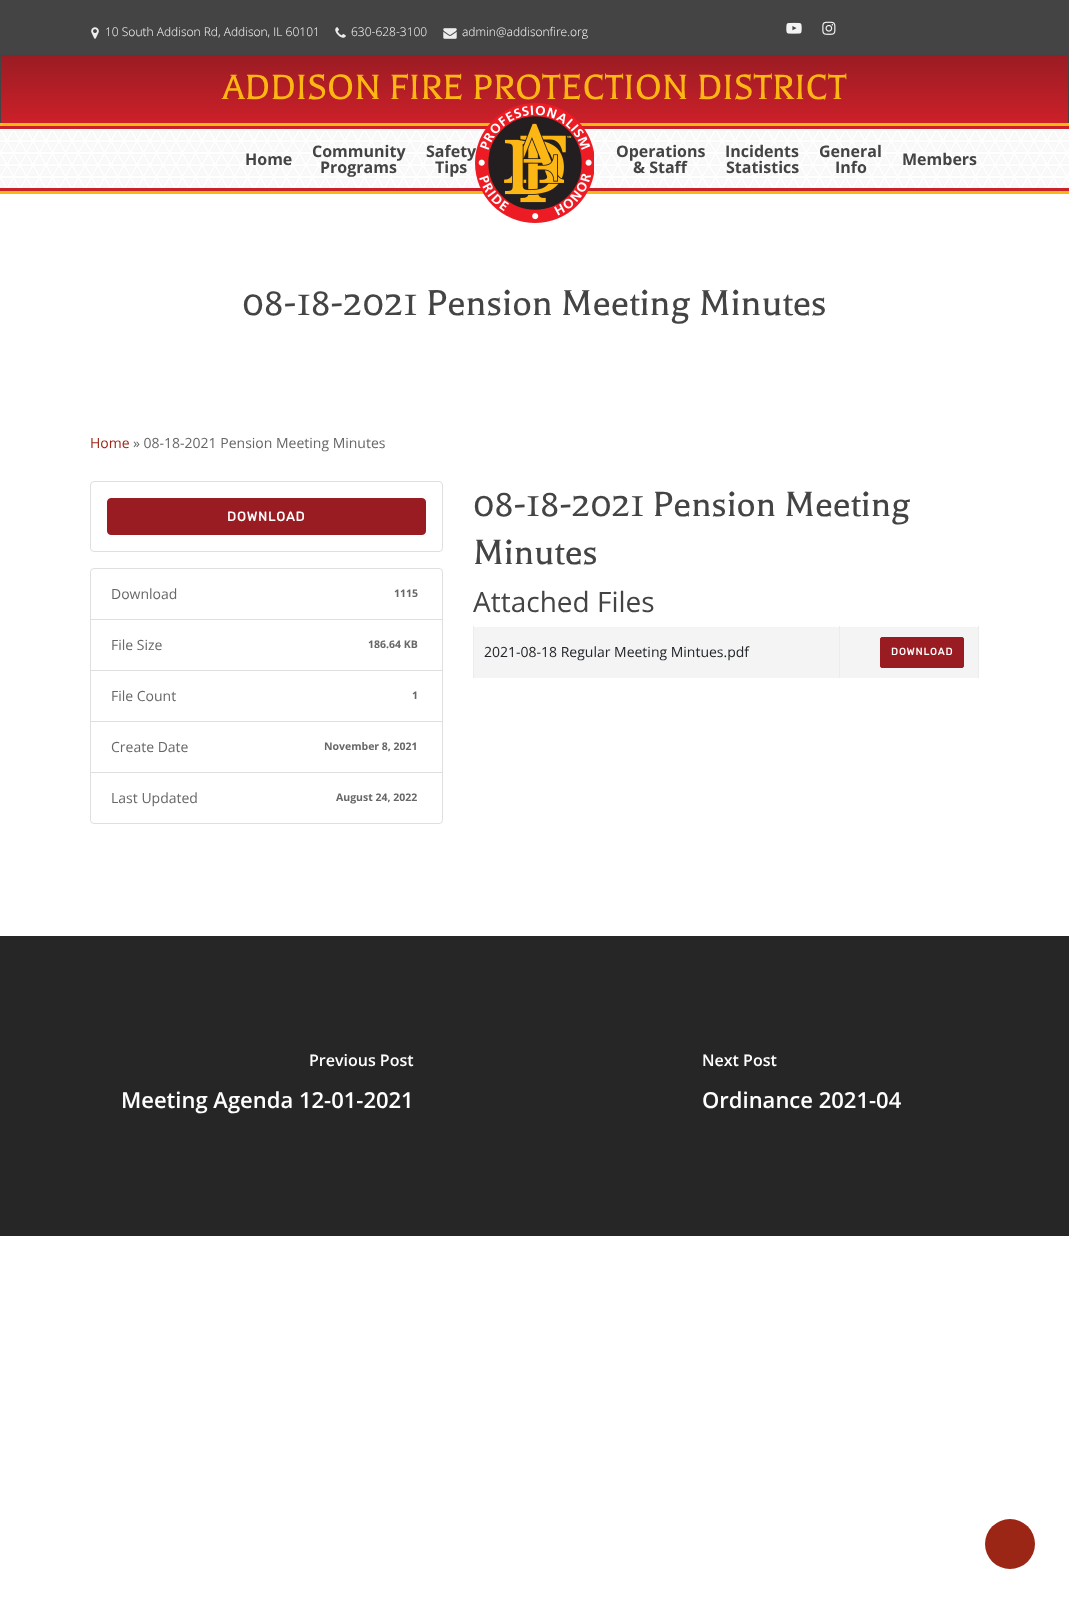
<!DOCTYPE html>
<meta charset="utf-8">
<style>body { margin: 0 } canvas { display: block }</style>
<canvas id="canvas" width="1069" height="1603"></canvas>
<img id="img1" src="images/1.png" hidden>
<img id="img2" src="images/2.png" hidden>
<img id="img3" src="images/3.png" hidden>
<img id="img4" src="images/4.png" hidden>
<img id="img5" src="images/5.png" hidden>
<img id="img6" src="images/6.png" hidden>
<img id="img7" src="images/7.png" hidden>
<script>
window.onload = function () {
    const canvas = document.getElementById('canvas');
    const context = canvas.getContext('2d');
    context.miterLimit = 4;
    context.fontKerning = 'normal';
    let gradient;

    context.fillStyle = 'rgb(255, 255, 255)';
    context.fillRect(0, 0, 1069, 1603);
    context.fillStyle = 'rgb(68, 68, 68)';
    context.fillRect(0, 0, 1069, 123);
    context.drawImage(document.getElementById('img1'), 91, 27, 8, 12);
    context.drawImage(document.getElementById('img2'), 335, 27, 11, 11);
    context.drawImage(document.getElementById('img3'), 443, 28, 14, 11);
    context.drawImage(document.getElementById('img4'), 786, 22, 16, 12);
    context.drawImage(document.getElementById('img5'), 822, 21, 14, 14);
    gradient = context.createLinearGradient(535, 55, 535, 125);
    gradient.addColorStop(0, 'rgb(154, 28, 35)');
    gradient.addColorStop(1, 'rgb(206, 32, 41)');
    context.fillStyle = gradient;
    context.fillRect(1, 55, 1067, 68);
    context.drawImage(document.getElementById('img6'), 0, 130, 1069, 58);
    context.fillStyle = 'rgb(203, 32, 41)';
    context.fillRect(0, 126, 1069, 3);
    context.fillRect(0, 188, 1069, 3);
    context.fillStyle = 'rgb(253, 183, 20)';
    context.fillRect(0, 123, 1069, 3);
    context.fillRect(0, 191, 1069, 3);
    context.drawImage(document.getElementById('img7'), 475, 103, 119, 120);
    context.beginPath();
    context.roundRect(90.5, 481.5, 352, 70, 3.5);
    context.strokeStyle = 'rgb(223, 223, 223)';
    context.stroke();
    context.fillStyle = 'rgb(154, 28, 35)';
    context.beginPath();
    context.roundRect(107.5, 498.5, 318, 36, 3.5);
    context.fill();
    context.strokeStyle = 'rgb(154, 28, 35)';
    context.stroke();
    context.beginPath();
    context.roundRect(90.5, 568.5, 352, 51, [3.5, 3.5, 0, 0]);
    context.strokeStyle = 'rgb(223, 223, 223)';
    context.stroke();
    context.strokeRect(90.5, 619.5, 352, 51);
    context.strokeRect(90.5, 670.5, 352, 51);
    context.strokeRect(90.5, 721.5, 352, 51);
    context.fillStyle = 'rgb(255, 255, 255)';
    context.beginPath();
    context.roundRect(90.5, 772.5, 352, 51, [0, 0, 3.5, 3.5]);
    context.fill();
    context.stroke();
    context.fillStyle = 'rgb(244, 244, 244)';
    context.fillRect(474, 627, 365, 51);
    context.fillStyle = 'rgb(236, 236, 236)';
    context.fillRect(839, 626, 1, 52);
    context.fillRect(473, 626, 1, 52);
    context.fillStyle = 'rgb(244, 244, 244)';
    context.fillRect(840, 627, 138, 51);
    context.fillStyle = 'rgb(236, 236, 236)';
    context.fillRect(978, 626, 1, 52);
    context.fillStyle = 'rgb(154, 28, 35)';
    context.beginPath();
    context.roundRect(880.5, 637.5, 83, 30, 1.5);
    context.fill();
    context.strokeStyle = 'rgb(154, 28, 35)';
    context.stroke();
    context.fillStyle = 'rgb(38, 38, 38)';
    context.fillRect(0, 936, 1069, 300);
    context.fillStyle = 'rgb(155, 38, 21)';
    context.beginPath();
    context.arc(1010, 1544, 25, 0, 2 * Math.PI);
    context.fill();
    context.font = '300 12px Open Sans';
    context.fillStyle = 'rgb(255, 255, 255)';
    context.fillText('10 South Addison Rd, Addison, IL 60101', 105, 36);
    context.fillText('630-628-3100', 351, 36);
    context.fillText('admin@addisonfire.org', 462, 36);
    context.font = '40px Balthazar';
    context.fillStyle = 'rgb(253, 183, 20)';
    context.fillText('ADDISON FIRE PROTECTION DISTRICT', 222, 99);
    context.font = 'bold 16px Open Sans';
    context.fillStyle = 'rgb(68, 68, 68)';
    context.fillText('Home', 245, 165);
    context.fillText('Community', 312, 157);
    context.fillText('Programs', 320, 173);
    context.fillText('Safety', 426, 157);
    context.fillText('Tips', 435, 173);
    context.fillText('Operations', 616, 157);
    context.fillText('& Staff', 633, 173);
    context.fillText('Incidents', 725, 157);
    context.fillText('Statistics', 726, 173);
    context.fillText('General', 819, 157);
    context.fillText('Info', 835, 173);
    context.fillText('Members', 902, 165);
    context.font = '41px Balthazar';
    context.fillText('08-18-2021 Pension Meeting Minutes', 242, 315);
    context.font = '14px Open Sans';
    context.fillStyle = 'rgb(155, 38, 21)';
    context.fillText('Home', 90, 448);
    context.fillStyle = 'rgb(103, 103, 103)';
    context.fillText('» 08-18-2021 Pension Meeting Minutes', 133, 448);
    context.letterSpacing = '1px';
    context.font = 'bold 13px Rubik';
    context.fillStyle = 'rgb(255, 255, 255)';
    context.fillText('DOWNLOAD', 227, 521);
    context.letterSpacing = '0px';
    context.font = '14px Open Sans';
    context.fillStyle = 'rgb(103, 103, 103)';
    context.fillText('Download', 111, 599);
    context.font = 'bold 10.5px Open Sans';
    context.fillText('1115', 394, 597);
    context.font = '14px Open Sans';
    context.fillText('File Size', 111, 650);
    context.font = 'bold 10.5px Open Sans';
    context.fillText('186.64 KB', 368, 648);
    context.font = '14px Open Sans';
    context.fillText('File Count', 111, 701);
    context.font = 'bold 10.5px Open Sans';
    context.fillText('1', 412, 699);
    context.font = '14px Open Sans';
    context.fillText('Create Date', 111, 752);
    context.font = 'bold 10.5px Open Sans';
    context.fillText('November 8, 2021', 324, 750);
    context.font = '14px Open Sans';
    context.fillText('Last Updated', 111, 803);
    context.font = 'bold 10.5px Open Sans';
    context.fillText('August 24, 2022', 336, 801);
    context.font = '40px Balthazar';
    context.fillStyle = 'rgb(68, 68, 68)';
    context.fillText('08-18-2021 Pension Meeting', 473, 516);
    context.fillText('Minutes', 473, 564);
    context.font = '28px Open Sans';
    context.fillText('Attached Files', 473, 612);
    context.font = '14px Open Sans';
    context.fillStyle = 'rgb(33, 37, 41)';
    context.fillText('2021-08-18 Regular Meeting Mintues.pdf', 484, 657);
    context.letterSpacing = '1px';
    context.font = 'bold 10px Rubik';
    context.fillStyle = 'rgb(255, 255, 255)';
    context.fillText('DOWNLOAD', 891, 655);
    context.letterSpacing = '0px';
    context.font = '600 16px Open Sans';
    context.fillText('Previous Post', 309, 1066);
    context.font = '600 22px Open Sans';
    context.fillText('Meeting Agenda 12-01-2021', 121, 1108);
    context.font = '600 16px Open Sans';
    context.fillText('Next Post', 702, 1066);
    context.font = '600 22px Open Sans';
    context.fillText('Ordinance 2021-04', 702, 1108);
};
</script>
